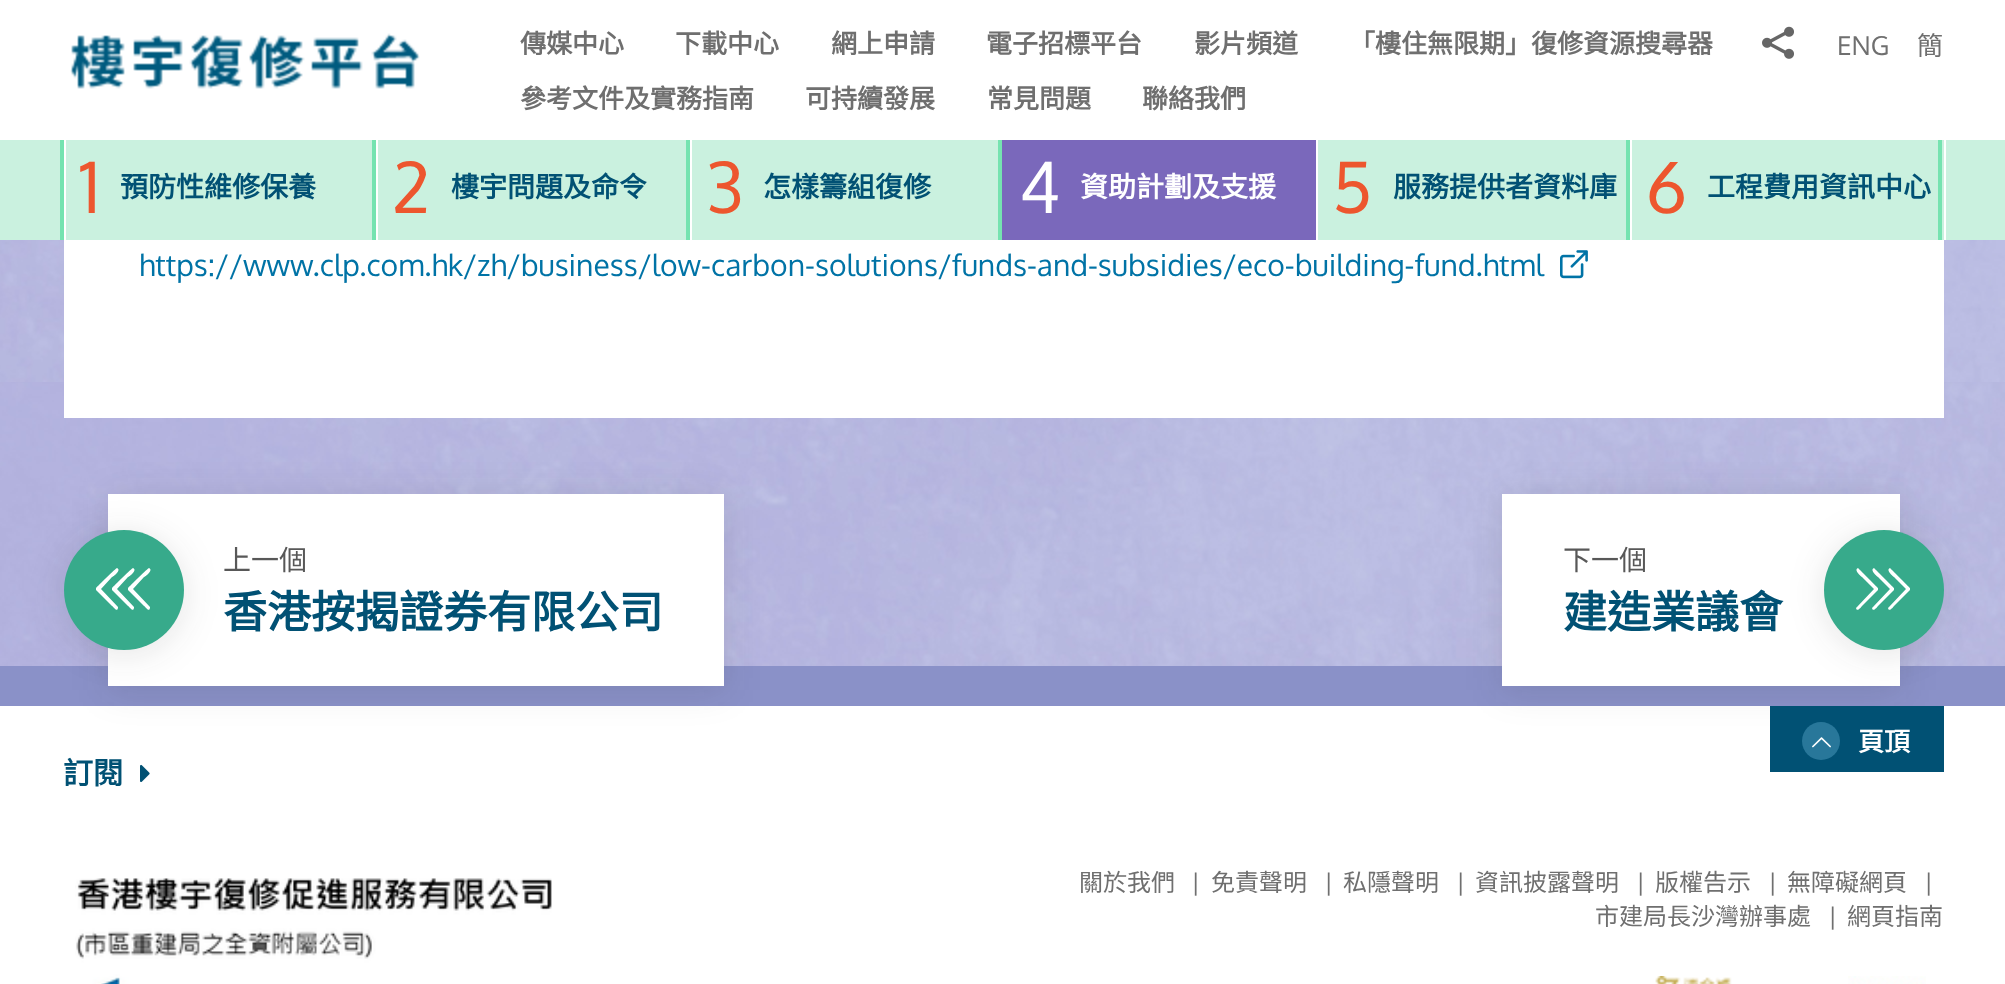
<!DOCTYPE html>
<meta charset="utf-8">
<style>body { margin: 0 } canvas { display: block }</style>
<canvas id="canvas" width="2005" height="984"></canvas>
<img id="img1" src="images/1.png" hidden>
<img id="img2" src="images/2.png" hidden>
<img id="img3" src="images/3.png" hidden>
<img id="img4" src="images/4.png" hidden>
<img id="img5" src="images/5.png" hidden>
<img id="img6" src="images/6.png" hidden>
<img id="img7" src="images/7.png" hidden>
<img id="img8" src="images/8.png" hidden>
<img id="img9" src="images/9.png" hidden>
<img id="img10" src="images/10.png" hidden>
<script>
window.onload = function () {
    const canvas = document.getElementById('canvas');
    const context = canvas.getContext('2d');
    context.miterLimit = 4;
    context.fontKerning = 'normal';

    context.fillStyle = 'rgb(255, 255, 255)';
    context.fillRect(0, 0, 2005, 984);
    context.drawImage(document.getElementById('img1'), 70, 33, 350, 56);
    context.drawImage(document.getElementById('img2'), 1762, 26, 32, 33);
    context.fillStyle = 'rgb(202, 241, 223)';
    context.fillRect(0, 140, 2005, 100);
    context.fillStyle = 'rgb(117, 227, 176)';
    context.fillRect(60, 140, 4, 100);
    context.fillRect(372, 140, 4, 100);
    context.fillStyle = 'rgb(255, 255, 255)';
    context.fillRect(64, 140, 2, 100);
    context.fillStyle = 'rgb(117, 227, 176)';
    context.fillRect(686, 140, 4, 100);
    context.fillStyle = 'rgb(255, 255, 255)';
    context.fillRect(376, 140, 2, 100);
    context.fillStyle = 'rgb(117, 227, 176)';
    context.fillRect(998, 140, 4, 100);
    context.fillStyle = 'rgb(255, 255, 255)';
    context.fillRect(690, 140, 2, 100);
    context.fillStyle = 'rgb(122, 104, 187)';
    context.fillRect(1002, 140, 314, 100);
    context.fillStyle = 'rgb(117, 227, 176)';
    context.fillRect(1626, 140, 4, 100);
    context.fillStyle = 'rgb(255, 255, 255)';
    context.fillRect(1316, 140, 2, 100);
    context.fillStyle = 'rgb(117, 227, 176)';
    context.fillRect(1938, 140, 4, 100);
    context.fillStyle = 'rgb(255, 255, 255)';
    context.fillRect(1630, 140, 2, 100);
    context.fillRect(1944, 140, 2, 100);
    context.drawImage(document.getElementById('img3'), 0, 382, 2005, 284);
    context.drawImage(document.getElementById('img4'), 0, 240, 2005, 142);
    context.fillRect(64, 240, 1880, 178);
    context.drawImage(document.getElementById('img5'), 1560, 250, 28, 29);
    context.fillStyle = 'rgb(138, 145, 200)';
    context.fillRect(0, 666, 2005, 40);
    context.fillStyle = 'rgba(34, 30, 31, 0.12)';
    context.filter = 'blur(18px)';
    context.beginPath();
    context.rect(108, 498, 616, 192);
    context.fill();
    context.filter = 'none';
    context.fillStyle = 'rgb(255, 255, 255)';
    context.fillRect(108, 494, 616, 192);
    context.fillStyle = 'rgba(34, 30, 31, 0.12)';
    context.filter = 'blur(18px)';
    context.beginPath();
    context.roundRect(64, 534, 120, 120, 60);
    context.fill();
    context.filter = 'none';
    context.fillStyle = 'rgb(55, 170, 139)';
    context.beginPath();
    context.arc(124, 590, 60, 0, 2 * Math.PI);
    context.fill();
    context.fillStyle = 'rgb(255, 255, 255)';
    context.beginPath();
    context.moveTo(118, 607);
    context.lineTo(118, 608);
    context.bezierCurveTo(117, 613, 113, 606, 112, 606);
    context.lineTo(96, 590);
    context.lineTo(96, 588);
    context.bezierCurveTo(98, 586, 116, 568, 117, 568);
    context.bezierCurveTo(122, 570, 113, 577, 112, 577);
    context.lineTo(101, 589);
    context.closePath();
    context.fill();
    context.beginPath();
    context.moveTo(134, 607);
    context.lineTo(134, 608);
    context.bezierCurveTo(133, 613, 129, 606, 128, 606);
    context.lineTo(112, 590);
    context.lineTo(112, 588);
    context.bezierCurveTo(114, 586, 132, 568, 133, 568);
    context.bezierCurveTo(138, 570, 129, 577, 128, 577);
    context.lineTo(117, 589);
    context.closePath();
    context.fill();
    context.beginPath();
    context.moveTo(150, 607);
    context.lineTo(150, 608);
    context.bezierCurveTo(149, 613, 145, 606, 144, 606);
    context.lineTo(128, 590);
    context.lineTo(128, 588);
    context.bezierCurveTo(130, 586, 148, 568, 149, 568);
    context.bezierCurveTo(154, 570, 145, 577, 144, 577);
    context.lineTo(133, 589);
    context.closePath();
    context.fill();
    context.fillStyle = 'rgba(34, 30, 31, 0.12)';
    context.filter = 'blur(18px)';
    context.beginPath();
    context.rect(1502, 498, 398, 192);
    context.fill();
    context.filter = 'none';
    context.fillStyle = 'rgb(255, 255, 255)';
    context.fillRect(1502, 494, 398, 192);
    context.fillStyle = 'rgba(34, 30, 31, 0.12)';
    context.filter = 'blur(18px)';
    context.beginPath();
    context.roundRect(1824, 534, 120, 120, 60);
    context.fill();
    context.filter = 'none';
    context.fillStyle = 'rgb(55, 170, 139)';
    context.beginPath();
    context.arc(1884, 590, 60, 0, 2 * Math.PI);
    context.fill();
    context.fillStyle = 'rgb(255, 255, 255)';
    context.beginPath();
    context.moveTo(1857, 607);
    context.lineTo(1874, 589);
    context.lineTo(1862, 577);
    context.bezierCurveTo(1862, 577, 1853, 570, 1858, 568);
    context.bezierCurveTo(1858, 568, 1876, 586, 1878, 588);
    context.lineTo(1878, 590);
    context.lineTo(1862, 606);
    context.bezierCurveTo(1862, 606, 1857, 613, 1856, 608);
    context.closePath();
    context.fill();
    context.beginPath();
    context.moveTo(1873, 607);
    context.lineTo(1890, 589);
    context.lineTo(1878, 577);
    context.bezierCurveTo(1878, 577, 1869, 570, 1874, 568);
    context.bezierCurveTo(1874, 568, 1892, 586, 1894, 588);
    context.lineTo(1894, 590);
    context.lineTo(1878, 606);
    context.bezierCurveTo(1878, 606, 1873, 613, 1872, 608);
    context.closePath();
    context.fill();
    context.beginPath();
    context.moveTo(1889, 607);
    context.lineTo(1906, 589);
    context.lineTo(1894, 577);
    context.bezierCurveTo(1894, 577, 1885, 570, 1890, 568);
    context.bezierCurveTo(1890, 568, 1908, 586, 1910, 588);
    context.lineTo(1910, 590);
    context.lineTo(1894, 606);
    context.bezierCurveTo(1894, 606, 1889, 613, 1888, 608);
    context.closePath();
    context.fill();
    context.drawImage(document.getElementById('img6'), 140, 764, 10, 18);
    context.fillStyle = 'rgb(1, 81, 116)';
    context.fillRect(1770, 706, 174, 66);
    context.fillStyle = 'rgb(40, 119, 154)';
    context.beginPath();
    context.arc(1821, 741, 19, 0, 2 * Math.PI);
    context.fill();
    context.drawImage(document.getElementById('img7'), 1812, 737, 19, 11);
    context.drawImage(document.getElementById('img8'), 75, 878, 477, 106);
    context.drawImage(document.getElementById('img9'), 1655, 976, 77, 8);
    context.drawImage(document.getElementById('img10'), 1848, 976, 78, 8);
    context.font = 'bold 26px Noto Sans CJK HK';
    context.fillStyle = 'rgb(111, 111, 111)';
    context.fillText('傳媒中心', 520, 53);
    context.fillText('下載中心', 675, 53);
    context.fillText('網上申請', 831, 53);
    context.fillText('電子招標平台', 986, 53);
    context.fillText('影片頻道', 1194, 53);
    context.fillText('「樓住無限期」復修資源搜尋器', 1349, 53);
    context.font = '26px Oxygen';
    context.fillText('ENG', 1837, 55);
    context.font = '26px Noto Sans CJK HK';
    context.fillText('簡', 1917, 55);
    context.font = 'bold 26px Noto Sans CJK HK';
    context.fillText('參考文件及實務指南', 520, 108);
    context.fillText('可持續發展', 805, 108);
    context.fillText('常見問題', 987, 108);
    context.fillText('聯絡我們', 1142, 108);
    context.font = '70px Oxygen';
    context.fillStyle = 'rgb(237, 86, 46)';
    context.fillText('1', 79, 213);
    context.font = 'bold 28px Noto Sans CJK HK';
    context.fillStyle = 'rgb(1, 81, 116)';
    context.fillText('預防性維修保養', 120, 197);
    context.font = '70px Oxygen';
    context.fillStyle = 'rgb(237, 86, 46)';
    context.fillText('2', 392, 213);
    context.font = 'bold 28px Noto Sans CJK HK';
    context.fillStyle = 'rgb(1, 81, 116)';
    context.fillText('樓宇問題及命令', 451, 197);
    context.font = '70px Oxygen';
    context.fillStyle = 'rgb(237, 86, 46)';
    context.fillText('3', 706, 213);
    context.font = 'bold 28px Noto Sans CJK HK';
    context.fillStyle = 'rgb(1, 81, 116)';
    context.fillText('怎樣籌組復修', 763, 197);
    context.font = '70px Oxygen';
    context.fillStyle = 'rgb(255, 255, 255)';
    context.fillText('4', 1019, 213);
    context.font = 'bold 28px Noto Sans CJK HK';
    context.fillText('資助計劃及支援', 1080, 197);
    context.font = '70px Oxygen';
    context.fillStyle = 'rgb(237, 86, 46)';
    context.fillText('5', 1332, 213);
    context.font = 'bold 28px Noto Sans CJK HK';
    context.fillStyle = 'rgb(1, 81, 116)';
    context.fillText('服務提供者資料庫', 1393, 197);
    context.font = '70px Oxygen';
    context.fillStyle = 'rgb(237, 86, 46)';
    context.fillText('6', 1646, 213);
    context.font = 'bold 28px Noto Sans CJK HK';
    context.fillStyle = 'rgb(1, 81, 116)';
    context.fillText('工程費用資訊中心', 1707, 197);
    context.font = '30.05px Oxygen';
    context.fillStyle = 'rgb(0, 115, 166)';
    context.fillText('https://www.clp.com.hk/zh/business/low-carbon-solutions/funds-and-subsidies/eco-building-fund.html', 139, 276);
    context.font = '28px Noto Sans CJK HK';
    context.fillStyle = 'rgb(88, 88, 88)';
    context.fillText('上一個', 223, 570);
    context.font = 'bold 44px Noto Sans CJK HK';
    context.fillStyle = 'rgb(1, 81, 116)';
    context.fillText('香港按揭證券有限公司', 223, 628);
    context.font = '28px Noto Sans CJK HK';
    context.fillStyle = 'rgb(88, 88, 88)';
    context.fillText('下一個', 1563, 570);
    context.font = 'bold 44px Noto Sans CJK HK';
    context.fillStyle = 'rgb(1, 81, 116)';
    context.fillText('建造業議會', 1563, 628);
    context.font = 'bold 30.05px Noto Sans CJK HK';
    context.fillText('訂閱', 63, 784);
    context.font = 'bold 26px Noto Sans CJK HK';
    context.fillStyle = 'rgb(255, 255, 255)';
    context.fillText('頁頂', 1858, 751);
    context.font = '24px Noto Sans CJK HK';
    context.fillStyle = 'rgb(111, 111, 111)';
    context.fillText('關於我們', 1079, 891);
    context.font = '24px Oxygen';
    context.fillText('|', 1191, 891);
    context.font = '24px Noto Sans CJK HK';
    context.fillText('免責聲明', 1211, 891);
    context.font = '24px Oxygen';
    context.fillText('|', 1324, 891);
    context.font = '24px Noto Sans CJK HK';
    context.fillText('私隱聲明', 1343, 891);
    context.font = '24px Oxygen';
    context.fillText('|', 1456, 891);
    context.font = '24px Noto Sans CJK HK';
    context.fillText('資訊披露聲明', 1475, 891);
    context.font = '24px Oxygen';
    context.fillText('|', 1636, 891);
    context.font = '24px Noto Sans CJK HK';
    context.fillText('版權告示', 1655, 891);
    context.font = '24px Oxygen';
    context.fillText('|', 1768, 891);
    context.font = '24px Noto Sans CJK HK';
    context.fillText('無障礙網頁', 1787, 891);
    context.font = '24px Oxygen';
    context.fillText('|', 1924, 891);
    context.font = '24px Noto Sans CJK HK';
    context.fillText('市建局長沙灣辦事處', 1595, 925);
    context.font = '24px Oxygen';
    context.fillText('|', 1828, 925);
    context.font = '24px Noto Sans CJK HK';
    context.fillText('網頁指南', 1847, 925);
};
</script>
